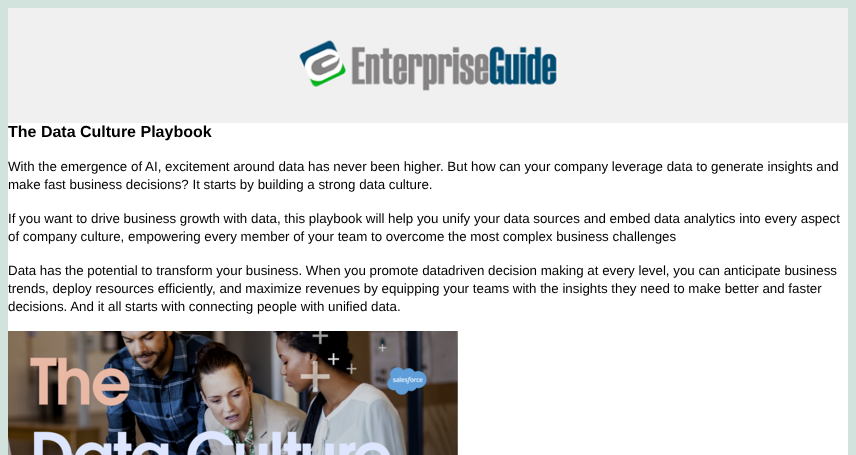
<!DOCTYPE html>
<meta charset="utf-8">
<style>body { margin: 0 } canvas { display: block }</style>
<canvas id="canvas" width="856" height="455"></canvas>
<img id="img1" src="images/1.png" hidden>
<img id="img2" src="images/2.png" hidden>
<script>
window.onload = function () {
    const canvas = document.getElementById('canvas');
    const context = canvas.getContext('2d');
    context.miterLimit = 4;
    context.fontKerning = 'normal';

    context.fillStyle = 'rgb(209, 227, 220)';
    context.fillRect(0, 0, 856, 455);
    context.fillStyle = 'rgb(255, 255, 255)';
    context.fillRect(8, 123, 840, 332);
    context.fillStyle = 'rgb(240, 240, 240)';
    context.fillRect(8, 8, 840, 115);
    context.drawImage(document.getElementById('img1'), 298, 40, 260, 51);
    context.drawImage(document.getElementById('img2'), 8, 331, 450, 124);
    context.font = 'bold 16px Liberation Sans';
    context.fillStyle = 'rgb(0, 0, 0)';
    context.fillText('The Data Culture Playbook', 8, 137);
    context.font = '13.33px Liberation Sans';
    context.fillText('With the emergence of AI, excitement around data has never been higher. But how can your company leverage data to generate insights and', 8, 171);
    context.fillText('make fast business decisions? It starts by building a strong data culture.', 8, 189);
    context.fillText('If you want to drive business growth with data, this playbook will help you unify your data sources and embed data analytics into every aspect', 8, 223);
    context.fillText('of company culture, empowering every member of your team to overcome the most complex business challenges', 8, 241);
    context.fillText('Data has the potential to transform your business. When you promote datadriven decision making at every level, you can anticipate business', 8, 275);
    context.fillText('trends, deploy resources efficiently, and maximize revenues by equipping your teams with the insights they need to make better and faster', 8, 293);
    context.fillText('decisions. And it all starts with connecting people with unified data.', 8, 311);
};
</script>
